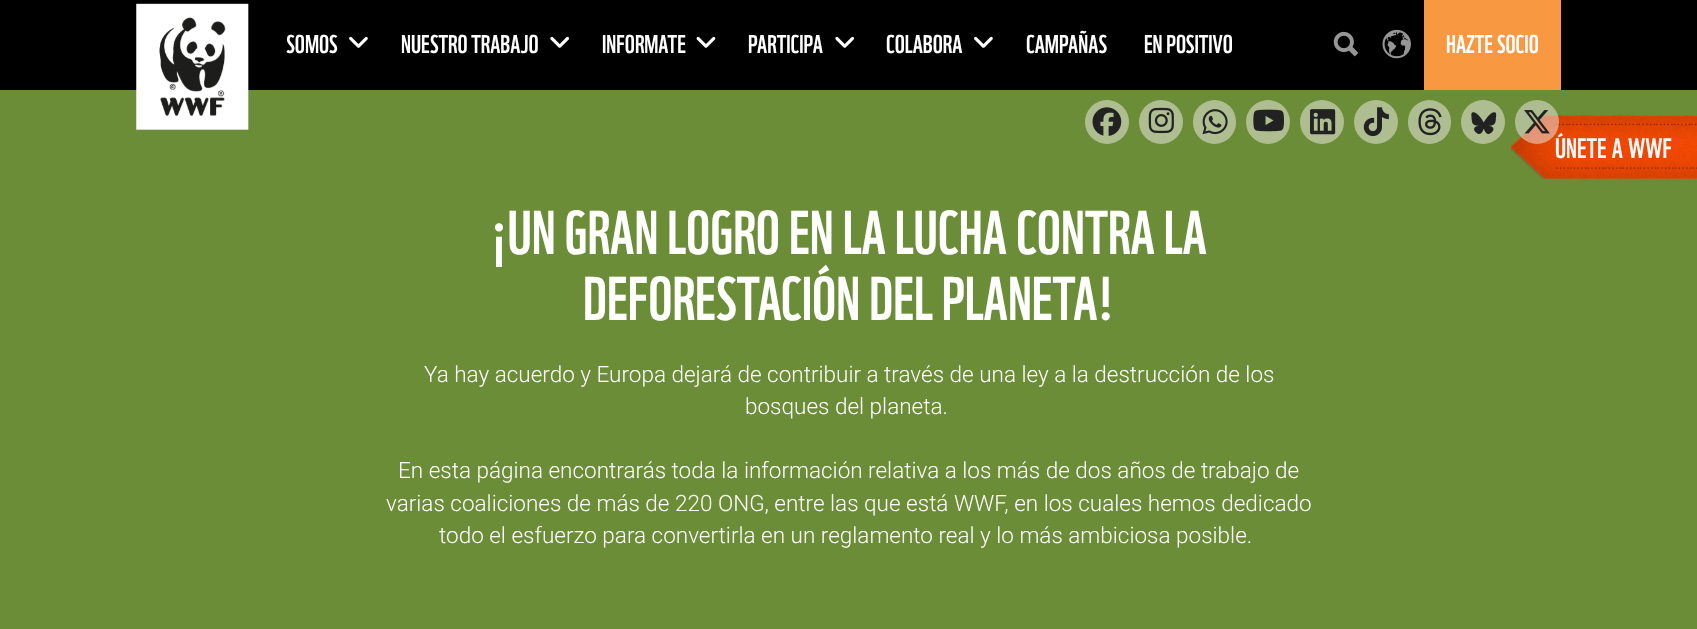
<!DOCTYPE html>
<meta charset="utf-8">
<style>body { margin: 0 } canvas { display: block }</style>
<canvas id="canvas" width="1697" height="629"></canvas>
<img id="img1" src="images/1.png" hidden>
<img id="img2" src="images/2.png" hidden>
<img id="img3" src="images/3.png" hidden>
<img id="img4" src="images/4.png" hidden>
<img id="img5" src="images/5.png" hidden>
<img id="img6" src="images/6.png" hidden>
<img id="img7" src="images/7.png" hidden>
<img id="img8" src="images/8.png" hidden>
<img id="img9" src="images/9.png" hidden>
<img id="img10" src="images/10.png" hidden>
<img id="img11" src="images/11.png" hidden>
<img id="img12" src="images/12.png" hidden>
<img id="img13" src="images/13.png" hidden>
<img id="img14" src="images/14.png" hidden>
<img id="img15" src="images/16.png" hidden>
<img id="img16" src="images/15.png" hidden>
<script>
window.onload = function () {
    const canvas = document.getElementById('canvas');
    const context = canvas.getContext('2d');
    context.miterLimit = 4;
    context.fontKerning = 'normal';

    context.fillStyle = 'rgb(108, 141, 56)';
    context.fillRect(0, 0, 1697, 629);
    context.fillStyle = 'rgb(0, 0, 0)';
    context.fillRect(0, 0, 1697, 90);
    context.drawImage(document.getElementById('img1'), 136, 3, 113, 127);
    context.drawImage(document.getElementById('img2'), 349, 36, 19, 12);
    context.drawImage(document.getElementById('img3'), 550, 36, 19, 12);
    context.drawImage(document.getElementById('img4'), 696, 36, 20, 12);
    context.drawImage(document.getElementById('img3'), 835, 36, 19, 12);
    context.drawImage(document.getElementById('img2'), 974, 36, 19, 12);
    context.drawImage(document.getElementById('img5'), 1333, 31, 26, 26);
    context.drawImage(document.getElementById('img6'), 1382, 29, 29, 30);
    context.fillStyle = 'rgb(248, 152, 64)';
    context.fillRect(1424, 0, 137, 90);
    context.fillStyle = 'rgb(174, 190, 145)';
    context.beginPath();
    context.arc(1107, 122, 22, 0, 2 * Math.PI);
    context.fill();
    context.drawImage(document.getElementById('img7'), 1092, 107, 30, 29);
    context.beginPath();
    context.arc(1161, 122, 22, 0, 2 * Math.PI);
    context.fill();
    context.drawImage(document.getElementById('img8'), 1148, 107, 26, 27);
    context.beginPath();
    context.roundRect(1193, 100, 43, 44, 21.5);
    context.fill();
    context.drawImage(document.getElementById('img9'), 1202, 109, 26, 26);
    context.beginPath();
    context.arc(1268, 122, 22, 0, 2 * Math.PI);
    context.fill();
    context.drawImage(document.getElementById('img10'), 1253, 109, 31, 23);
    context.beginPath();
    context.arc(1322, 122, 22, 0, 2 * Math.PI);
    context.fill();
    context.drawImage(document.getElementById('img11'), 1310, 109, 26, 26);
    context.beginPath();
    context.arc(1376, 122, 22, 0, 2 * Math.PI);
    context.fill();
    context.drawImage(document.getElementById('img12'), 1363, 107, 26, 30);
    context.beginPath();
    context.roundRect(1408, 100, 43, 44, 21.5);
    context.fill();
    context.drawImage(document.getElementById('img13'), 1418, 108, 24, 28);
    context.beginPath();
    context.arc(1483, 122, 22, 0, 2 * Math.PI);
    context.fill();
    context.drawImage(document.getElementById('img14'), 1471, 112, 26, 22);
    context.drawImage(document.getElementById('img15'), 1510, 114, 187, 65);
    context.font = '25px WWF';
    context.fillStyle = 'rgb(255, 255, 255)';
    context.fillText('SOMOS', 286, 53);
    context.fillText('NUESTRO TRABAJO', 401, 53);
    context.fillText('INFORMATE', 602, 53);
    context.fillText('PARTICIPA', 748, 53);
    context.fillText('COLABORA', 886, 53);
    context.fillText('CAMPAÑAS', 1026, 53);
    context.fillText('EN POSITIVO', 1144, 53);
    context.fillText('HAZTE SOCIO', 1446, 53);
    context.font = '60px WWF';
    context.fillText('¡UN GRAN LOGRO EN LA LUCHA CONTRA LA', 491, 254);
    context.fillText('DEFORESTACIÓN DEL PLANETA!', 583, 320);
    context.font = '300 22.5px Roboto';
    context.fillText('Ya hay acuerdo y Europa dejará de contribuir a través de una ley a la destrucción de los', 424, 382);
    context.fillText('bosques del planeta.', 745, 414);
    context.fillText('En esta página encontrarás toda la información relativa a los más de dos años de trabajo de', 398, 478);
    context.fillText('varias coaliciones de más de 220 ONG, entre las que está WWF, en los cuales hemos dedicado', 386, 511);
    context.fillText('todo el esfuerzo para convertirla en un reglamento real y lo más ambiciosa posible.', 439, 543);
    context.wordSpacing = '1px';
    context.font = '27.5px "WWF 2"';
    context.fillStyle = 'rgb(248, 248, 248)';
    context.fillText('ÚNETE A WWF', 1555, 158);
    context.fillStyle = 'rgba(239, 238, 234, 0.5)';
    context.beginPath();
    context.arc(1537, 122, 22, 0, 2 * Math.PI);
    context.fill();
    context.drawImage(document.getElementById('img16'), 1524, 110, 26, 24);
};
</script>
